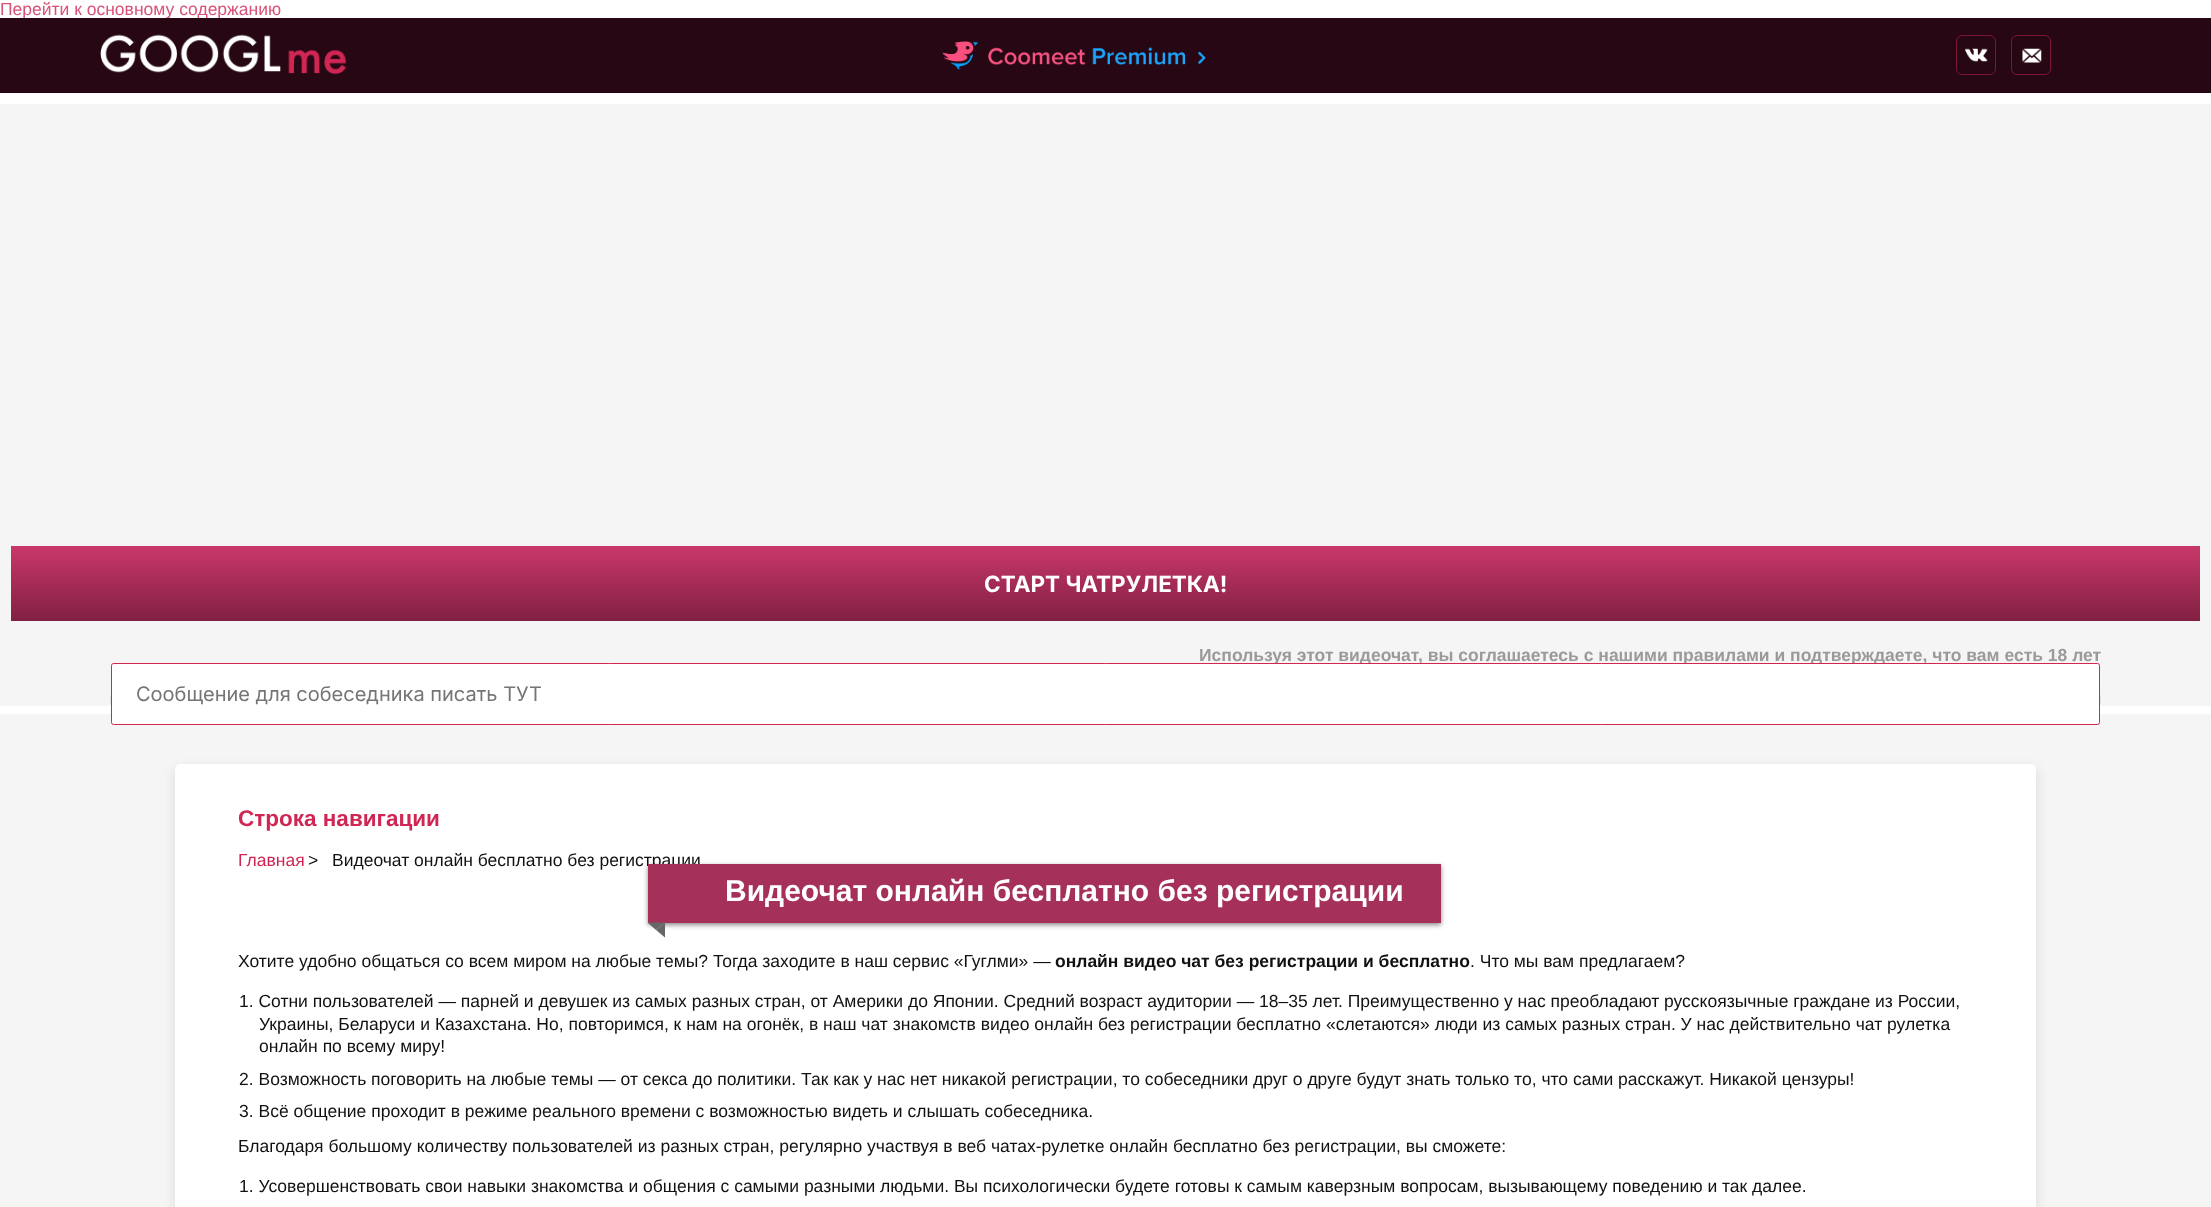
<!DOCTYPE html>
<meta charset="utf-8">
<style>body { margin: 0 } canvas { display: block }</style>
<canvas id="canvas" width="2211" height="1207"></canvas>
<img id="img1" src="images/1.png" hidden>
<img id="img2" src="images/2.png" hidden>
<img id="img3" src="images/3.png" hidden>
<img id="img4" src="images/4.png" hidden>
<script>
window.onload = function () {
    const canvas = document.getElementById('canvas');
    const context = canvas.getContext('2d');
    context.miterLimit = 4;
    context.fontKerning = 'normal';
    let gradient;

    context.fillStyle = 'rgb(255, 255, 255)';
    context.fillRect(0, 0, 2211, 1207);
    context.fillStyle = 'rgb(245, 245, 245)';
    context.fillRect(0, 104, 2211, 602);
    gradient = context.createLinearGradient(1106, 546, 1106, 621);
    gradient.addColorStop(0, 'rgb(201, 55, 107)');
    gradient.addColorStop(1, 'rgb(129, 32, 67)');
    context.fillStyle = gradient;
    context.fillRect(11, 546, 2189, 75);
    context.beginPath();
    context.roundRect(110.5, 693.5, 1990, 12, 3.5);
    context.strokeStyle = 'rgb(225, 225, 225)';
    context.stroke();
    context.fillStyle = 'rgb(245, 245, 245)';
    context.fillRect(0, 714, 2211, 493);
    context.fillStyle = 'rgba(0, 0, 0, 0.05)';
    context.filter = 'blur(6px)';
    context.beginPath();
    context.roundRect(174, 768, 1861, 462, 5);
    context.fill();
    context.filter = 'none';
    context.filter = 'blur(6px)';
    context.beginPath();
    context.roundRect(176, 768, 1862, 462, 5);
    context.fill();
    context.filter = 'none';
    context.fillStyle = 'rgb(255, 255, 255)';
    context.beginPath();
    context.roundRect(175, 764, 1861, 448, 5);
    context.fill();
    context.fillStyle = 'rgb(136, 136, 136)';
    context.filter = 'blur(2.5px)';
    context.beginPath();
    context.rect(648, 866, 793, 59);
    context.fill();
    context.filter = 'none';
    context.font = '17.5px Liberation Sans';
    context.fillStyle = 'rgb(217, 81, 118)';
    context.fillText('Перейти к основному содержанию', 0, 15);
    context.fillStyle = 'rgb(38, 7, 19)';
    context.fillRect(0, 18, 2211, 75);
    context.drawImage(document.getElementById('img1'), 100, 34, 247, 41);
    context.drawImage(document.getElementById('img2'), 942, 41, 264, 29);
    context.drawImage(document.getElementById('img3'), 1965, 48, 23, 14);
    context.beginPath();
    context.roundRect(1956.5, 35.5, 39, 39, 5.5);
    context.strokeStyle = 'rgb(123, 23, 52)';
    context.stroke();
    context.drawImage(document.getElementById('img4'), 2022, 48, 20, 15);
    context.beginPath();
    context.roundRect(2011.5, 35.5, 39, 39, 5.5);
    context.stroke();
    context.font = 'bold 22.5px Inter';
    context.fillStyle = 'rgb(255, 255, 255)';
    context.fillText('СТАРТ ЧАТРУЛЕТКА!', 984, 592);
    context.font = 'bold 17.5px Liberation Sans';
    context.fillStyle = 'rgb(154, 154, 154)';
    context.fillText('Используя этот видеочат, вы соглашаетесь с нашими правилами и подтверждаете, что вам есть 18 лет', 1199, 661);
    context.fillStyle = 'rgb(255, 255, 255)';
    context.beginPath();
    context.roundRect(111.5, 663.5, 1988, 61, 2);
    context.fill();
    context.strokeStyle = 'rgb(207, 38, 84)';
    context.stroke();
    context.font = '20px Inter';
    context.fillStyle = 'rgb(117, 117, 117)';
    context.fillText('Сообщение для собеседника писать ТУТ', 136, 701);
    context.font = 'bold 22.5px Liberation Sans';
    context.fillStyle = 'rgb(207, 38, 84)';
    context.fillText('Строка навигации', 238, 826);
    context.font = '17.5px Liberation Sans';
    context.fillText('Главная', 238, 866);
    context.fillStyle = 'rgb(17, 17, 17)';
    context.fillText('>', 308, 866);
    context.fillText('Видеочат онлайн бесплатно без регистрации', 332, 866);
    context.fillStyle = 'rgb(165, 49, 90)';
    context.fillRect(648, 864, 793, 59);
    context.font = 'bold 30px Liberation Sans';
    context.fillStyle = 'rgb(255, 255, 255)';
    context.fillText('Видеочат онлайн бесплатно без регистрации', 725, 901);
    context.fillStyle = 'rgb(102, 102, 102)';
    context.beginPath();
    context.moveTo(647.5, 922.5);
    context.lineTo(665, 922.5);
    context.lineTo(656, 930);
    context.closePath();
    context.fill();
    context.beginPath();
    context.moveTo(665, 922.5);
    context.lineTo(665, 937.5);
    context.lineTo(656, 930);
    context.closePath();
    context.fill();
    context.font = '17.5px Liberation Sans';
    context.fillStyle = 'rgb(17, 17, 17)';
    context.fillText('Хотите удобно общаться со всем миром на любые темы? Тогда заходите в наш сервис «Гуглми» —', 238, 967);
    context.font = 'bold 17.5px Liberation Sans';
    context.fillText('онлайн видео чат без регистрации и бесплатно', 1055, 967);
    context.font = '17.5px Liberation Sans';
    context.fillText('. Что мы вам предлагаем?', 1470, 967);
    context.fillText('1. Сотни пользователей — парней и девушек из самых разных стран, от Америки до Японии. Средний возраст аудитории — 18–35 лет. Преимущественно у нас преобладают русскоязычные граждане из России,', 239, 1007);
    context.fillText('Украины, Беларуси и Казахстана. Но, повторимся, к нам на огонёк, в наш чат знакомств видео онлайн без регистрации бесплатно «слетаются» люди из самых разных стран. У нас действительно чат рулетка', 259, 1030);
    context.fillText('онлайн по всему миру!', 259, 1052);
    context.fillText('2. Возможность поговорить на любые темы — от секса до политики. Так как у нас нет никакой регистрации, то собеседники друг о друге будут знать только то, что сами расскажут. Никакой цензуры!', 239, 1085);
    context.fillText('3. Всё общение проходит в режиме реального времени с возможностью видеть и слышать собеседника.', 239, 1117);
    context.fillText('Благодаря большому количеству пользователей из разных стран, регулярно участвуя в веб чатах-рулетке онлайн бесплатно без регистрации, вы сможете:', 238, 1152);
    context.fillText('1. Усовершенствовать свои навыки знакомства и общения с самыми разными людьми. Вы психологически будете готовы к самым каверзным вопросам, вызывающему поведению и так далее.', 239, 1192);
};
</script>
